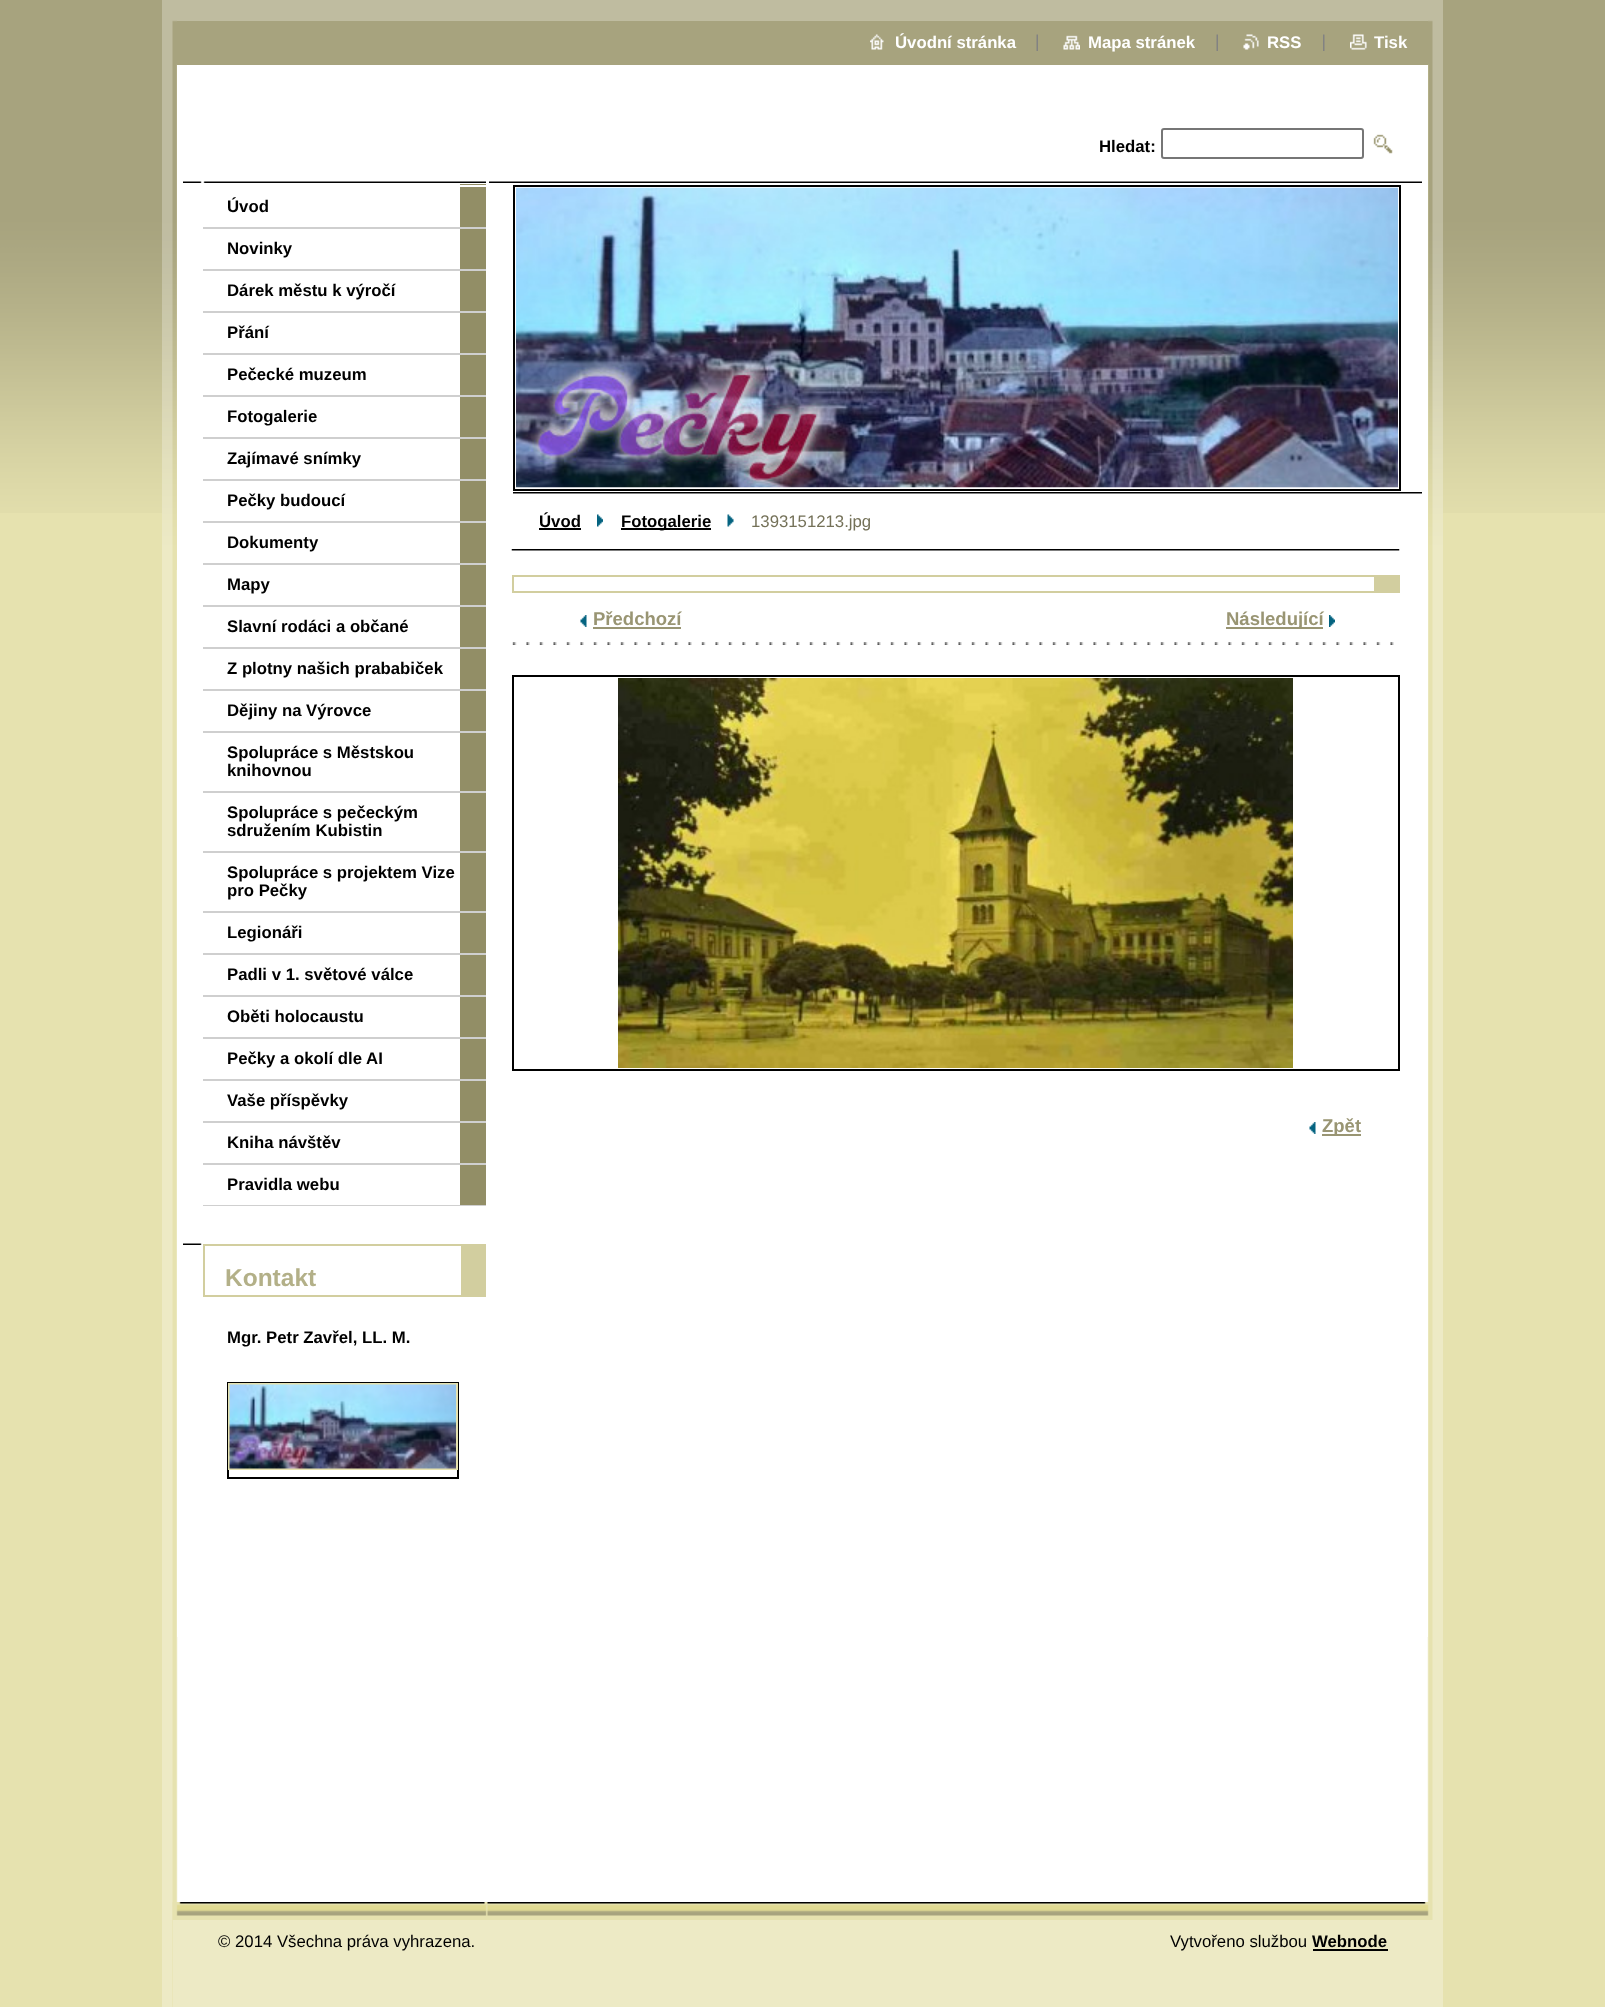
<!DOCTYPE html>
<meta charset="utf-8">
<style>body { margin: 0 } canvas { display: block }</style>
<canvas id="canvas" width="1605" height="2007"></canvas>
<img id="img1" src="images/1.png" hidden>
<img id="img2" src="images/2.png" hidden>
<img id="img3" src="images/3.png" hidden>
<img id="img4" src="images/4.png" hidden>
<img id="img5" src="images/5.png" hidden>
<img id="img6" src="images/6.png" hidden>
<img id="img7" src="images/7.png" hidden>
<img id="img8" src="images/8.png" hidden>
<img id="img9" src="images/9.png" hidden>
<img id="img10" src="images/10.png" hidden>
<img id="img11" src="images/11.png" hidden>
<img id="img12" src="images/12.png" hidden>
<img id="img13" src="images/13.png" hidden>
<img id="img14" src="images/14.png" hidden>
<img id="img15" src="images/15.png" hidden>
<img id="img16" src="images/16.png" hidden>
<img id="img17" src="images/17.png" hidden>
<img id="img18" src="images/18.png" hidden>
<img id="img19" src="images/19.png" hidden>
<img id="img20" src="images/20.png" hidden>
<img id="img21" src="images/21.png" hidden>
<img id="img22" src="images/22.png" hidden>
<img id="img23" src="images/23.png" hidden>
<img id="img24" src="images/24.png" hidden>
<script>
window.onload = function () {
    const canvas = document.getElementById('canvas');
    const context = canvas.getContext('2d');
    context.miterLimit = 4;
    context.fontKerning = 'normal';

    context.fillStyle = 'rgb(230, 226, 175)';
    context.fillRect(0, 0, 1605, 2007);
    context.drawImage(document.getElementById('img1'), 0, 0, 1605, 513);
    context.fillStyle = 'rgb(237, 234, 197)';
    context.fillRect(162, 570, 1281, 1437);
    context.drawImage(document.getElementById('img2'), 172, 64, 1261, 1943);
    context.drawImage(document.getElementById('img3'), 162, 0, 1281, 570);
    context.fillStyle = 'rgb(255, 255, 255)';
    context.fillRect(177, 65, 1251, 1572);
    context.fillStyle = 'rgb(191, 188, 160)';
    context.fillRect(177, 20, 1251, 1);
    context.fillStyle = 'rgb(167, 163, 126)';
    context.fillRect(177, 21, 1251, 44);
    context.drawImage(document.getElementById('img4'), 870, 34, 14, 16);
    context.drawImage(document.getElementById('img5'), 1036, 34, 2, 17);
    context.drawImage(document.getElementById('img6'), 1063, 35, 17, 15);
    context.drawImage(document.getElementById('img5'), 1216, 34, 2, 17);
    context.drawImage(document.getElementById('img7'), 1243, 34, 16, 16);
    context.drawImage(document.getElementById('img8'), 1323, 34, 2, 17);
    context.drawImage(document.getElementById('img9'), 1350, 34, 17, 16);
    context.beginPath();
    context.roundRect(1162, 129, 201, 29, 2);
    context.strokeStyle = 'rgb(118, 118, 118)';
    context.lineWidth = 2;
    context.stroke();
    context.drawImage(document.getElementById('img10'), 1373, 134, 20, 20);
    context.drawImage(document.getElementById('img11'), 183, 181, 303, 2);
    context.fillStyle = 'rgb(146, 142, 102)';
    context.fillRect(460, 184, 26, 1021);
    context.fillStyle = 'rgb(255, 255, 255)';
    context.fillRect(460, 185, 26, 2);
    context.fillStyle = 'rgb(207, 207, 207)';
    context.fillRect(203, 227, 283, 2);
    context.fillRect(203, 269, 283, 2);
    context.fillRect(203, 311, 283, 2);
    context.fillRect(203, 353, 283, 2);
    context.fillRect(203, 395, 283, 2);
    context.fillRect(203, 437, 283, 2);
    context.fillRect(203, 479, 283, 2);
    context.fillRect(203, 521, 283, 2);
    context.fillRect(203, 563, 283, 2);
    context.fillRect(203, 605, 283, 2);
    context.fillRect(203, 647, 283, 2);
    context.fillRect(203, 689, 283, 2);
    context.fillRect(203, 731, 283, 2);
    context.fillRect(203, 791, 283, 2);
    context.fillRect(203, 851, 283, 2);
    context.fillRect(203, 911, 283, 2);
    context.fillRect(203, 953, 283, 2);
    context.fillRect(203, 995, 283, 2);
    context.fillRect(203, 1037, 283, 2);
    context.fillRect(203, 1079, 283, 2);
    context.fillRect(203, 1121, 283, 2);
    context.fillRect(203, 1163, 283, 2);
    context.fillRect(203, 1205, 283, 1);
    context.drawImage(document.getElementById('img12'), 183, 1243, 19, 2);
    context.fillStyle = 'rgb(210, 206, 159)';
    context.fillRect(203, 1244, 258, 2);
    context.fillRect(461, 1244, 25, 51);
    context.fillRect(203, 1295, 283, 2);
    context.fillRect(203, 1244, 2, 52);
    context.strokeStyle = 'rgb(0, 0, 0)';
    context.strokeRect(228, 1383, 230, 95);
    context.strokeStyle = 'rgb(230, 226, 175)';
    context.strokeRect(229, 1384, 228, 85);
    context.drawImage(document.getElementById('img13'), 229, 1384, 227, 85);
    context.drawImage(document.getElementById('img14'), 489, 181, 933, 2);
    context.drawImage(document.getElementById('img15'), 513, 492, 909, 2);
    context.strokeStyle = 'rgb(0, 0, 0)';
    context.strokeRect(514, 186, 886, 304);
    context.drawImage(document.getElementById('img16'), 516, 187, 882, 301);
    context.drawImage(document.getElementById('img17'), 511, 549, 889, 2);
    context.fillStyle = 'rgb(0, 0, 0)';
    context.fillRect(539, 528, 42, 2);
    context.drawImage(document.getElementById('img18'), 597, 514, 6, 13);
    context.fillRect(621, 528, 90, 2);
    context.drawImage(document.getElementById('img19'), 727, 514, 7, 13);
    context.fillStyle = 'rgb(210, 206, 159)';
    context.fillRect(512, 575, 862, 2);
    context.fillRect(1374, 575, 26, 16);
    context.fillRect(512, 591, 888, 2);
    context.fillRect(512, 575, 2, 18);
    context.drawImage(document.getElementById('img20'), 512, 642, 882, 3);
    context.drawImage(document.getElementById('img21'), 580, 615, 7, 12);
    context.fillStyle = 'rgb(153, 149, 115)';
    context.fillRect(593, 627, 88, 2);
    context.fillRect(1226, 627, 97, 2);
    context.drawImage(document.getElementById('img22'), 1329, 615, 6, 12);
    context.strokeRect(513, 676, 886, 394);
    context.drawImage(document.getElementById('img23'), 618, 678, 675, 390);
    context.drawImage(document.getElementById('img21'), 1309, 1122, 7, 12);
    context.fillRect(1322, 1134, 39, 2);
    context.fillStyle = 'rgb(237, 234, 197)';
    context.fillRect(173, 1902, 1260, 105);
    context.drawImage(document.getElementById('img24'), 172, 1902, 1261, 18);
    context.fillStyle = 'rgb(0, 0, 0)';
    context.fillRect(1313, 1949, 75, 2);
    context.font = 'bold 16.75px Liberation Sans';
    context.fillStyle = 'rgb(255, 255, 255)';
    context.fillText('Úvodní stránka', 895, 48);
    context.fillText('Mapa stránek', 1088, 48);
    context.fillText('RSS', 1267, 48);
    context.fillText('Tisk', 1374, 48);
    context.fillStyle = 'rgb(0, 0, 0)';
    context.fillText('Hledat:', 1099, 152);
    context.fillText('Úvod', 227, 212);
    context.fillText('Novinky', 227, 254);
    context.fillText('Dárek městu k výročí', 227, 296);
    context.fillText('Přání', 227, 338);
    context.fillText('Pečecké muzeum', 227, 380);
    context.fillText('Fotogalerie', 227, 422);
    context.fillText('Zajímavé snímky', 227, 464);
    context.fillText('Pečky budoucí', 227, 506);
    context.fillText('Dokumenty', 227, 548);
    context.fillText('Mapy', 227, 590);
    context.fillText('Slavní rodáci a občané', 227, 632);
    context.fillText('Z plotny našich prababiček', 227, 674);
    context.fillText('Dějiny na Výrovce', 227, 716);
    context.fillText('Spolupráce s Městskou', 227, 758);
    context.fillText('knihovnou', 227, 776);
    context.fillText('Spolupráce s pečeckým', 227, 818);
    context.fillText('sdružením Kubistin', 227, 836);
    context.fillText('Spolupráce s projektem Vize', 227, 878);
    context.fillText('pro Pečky', 227, 896);
    context.fillText('Legionáři', 227, 938);
    context.fillText('Padli v 1. světové válce', 227, 980);
    context.fillText('Oběti holocaustu', 227, 1022);
    context.fillText('Pečky a okolí dle AI', 227, 1064);
    context.fillText('Vaše příspěvky', 227, 1106);
    context.fillText('Kniha návštěv', 227, 1148);
    context.fillText('Pravidla webu', 227, 1190);
    context.font = 'bold 24.5px Liberation Sans';
    context.fillStyle = 'rgb(179, 176, 136)';
    context.fillText('Kontakt', 225, 1286);
    context.font = 'bold 16.75px Liberation Sans';
    context.fillStyle = 'rgb(0, 0, 0)';
    context.fillText('Mgr. Petr Zavřel, LL. M.', 227, 1343);
    context.fillText('Úvod', 539, 527);
    context.fillText('Fotogalerie', 621, 527);
    context.font = '16.75px Liberation Sans';
    context.fillStyle = 'rgb(116, 113, 88)';
    context.fillText('1393151213.jpg', 751, 527);
    context.font = 'bold 18.5px Liberation Sans';
    context.fillStyle = 'rgb(153, 149, 115)';
    context.fillText('Předchozí', 593, 625);
    context.fillText('Následující', 1226, 625);
    context.fillText('Zpět', 1322, 1132);
    context.save();
    context.beginPath();
    context.rect(218, 1932, 720, 21);
    context.clip();
    context.font = '16.75px Liberation Sans';
    context.fillStyle = 'rgb(0, 0, 0)';
    context.fillText('© 2014 Všechna práva vyhrazena.', 218, 1947);
    context.restore();
    context.font = '16.75px Liberation Sans';
    context.fillStyle = 'rgb(0, 0, 0)';
    context.fillText('Vytvořeno službou', 1170, 1947);
    context.font = 'bold 16.75px Liberation Sans';
    context.fillText('Webnode', 1312, 1947);
};
</script>
